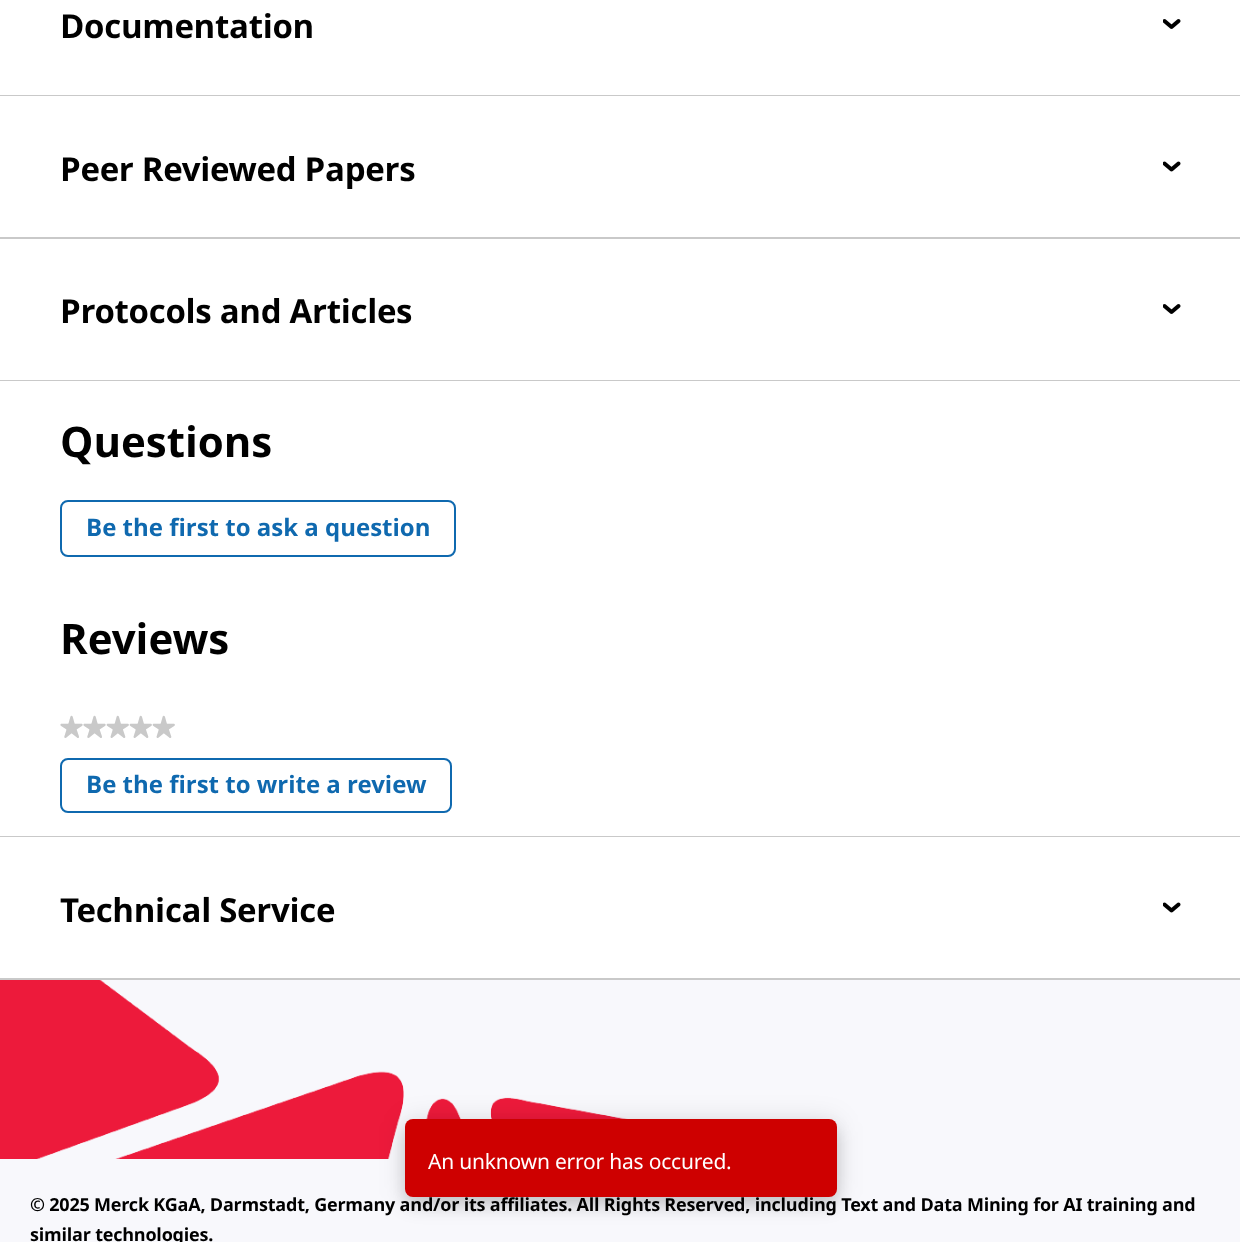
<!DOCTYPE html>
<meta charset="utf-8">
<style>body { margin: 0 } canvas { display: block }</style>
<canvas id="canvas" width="1240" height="1242"></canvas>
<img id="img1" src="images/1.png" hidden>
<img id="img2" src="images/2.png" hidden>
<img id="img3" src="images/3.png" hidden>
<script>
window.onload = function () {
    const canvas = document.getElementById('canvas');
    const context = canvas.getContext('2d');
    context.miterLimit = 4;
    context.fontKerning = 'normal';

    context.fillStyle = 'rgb(248, 248, 252)';
    context.fillRect(0, 0, 1240, 1242);
    context.drawImage(document.getElementById('img1'), 0, 980, 628, 179);
    context.fillStyle = 'rgb(201, 201, 201)';
    context.fillRect(0, 95, 1240, 1);
    context.fillStyle = 'rgb(255, 255, 255)';
    context.fillRect(0, 0, 1240, 95);
    context.drawImage(document.getElementById('img2'), 1163, 19, 18, 10);
    context.fillRect(0, 96, 1240, 141);
    context.fillStyle = 'rgb(201, 201, 201)';
    context.fillRect(0, 237, 1240, 2);
    context.drawImage(document.getElementById('img3'), 1163, 161, 18, 11);
    context.fillStyle = 'rgb(255, 255, 255)';
    context.fillRect(0, 239, 1240, 141);
    context.fillStyle = 'rgb(201, 201, 201)';
    context.fillRect(0, 380, 1240, 1);
    context.drawImage(document.getElementById('img2'), 1163, 304, 18, 10);
    context.fillStyle = 'rgb(255, 255, 255)';
    context.fillRect(0, 381, 1240, 455);
    context.fillStyle = 'rgb(201, 201, 201)';
    context.fillRect(0, 836, 1240, 1);
    context.beginPath();
    context.roundRect(61, 501, 394, 55, 7);
    context.strokeStyle = 'rgb(15, 105, 175)';
    context.lineWidth = 2;
    context.stroke();
    context.beginPath();
    context.roundRect(61, 759, 390, 53, 7);
    context.stroke();
    context.fillStyle = 'rgb(255, 255, 255)';
    context.fillRect(0, 837, 1240, 141);
    context.fillStyle = 'rgb(201, 201, 201)';
    context.fillRect(0, 978, 1240, 2);
    context.drawImage(document.getElementById('img3'), 1163, 902, 18, 11);
    context.fillStyle = 'rgba(0, 0, 0, 0.12)';
    context.filter = 'blur(13.5px)';
    context.beginPath();
    context.roundRect(405, 1121, 432, 78, 8);
    context.fill();
    context.filter = 'none';
    context.fillStyle = 'rgba(0, 0, 0, 0.14)';
    context.filter = 'blur(7.5px)';
    context.beginPath();
    context.roundRect(405, 1128, 432, 78, 8);
    context.fill();
    context.filter = 'none';
    context.fillStyle = 'rgb(206, 0, 0)';
    context.beginPath();
    context.roundRect(405, 1119, 432, 78, 8);
    context.fill();
    context.letterSpacing = '-0.3px';
    context.font = 'bold 33px Noto Sans';
    context.fillStyle = 'rgb(0, 0, 0)';
    context.fillText('Documentation', 60, 38);
    context.fillText('Peer Reviewed Papers', 60, 181);
    context.fillText('Protocols and Articles', 60, 323);
    context.letterSpacing = '0px';
    context.font = 'bold 42px Noto Sans';
    context.fillText('Questions', 60, 457);
    context.font = 'bold 24px Noto Sans';
    context.fillStyle = 'rgb(15, 105, 175)';
    context.fillText('Be the first to ask a question', 86, 536);
    context.font = 'bold 42px Noto Sans';
    context.fillStyle = 'rgb(0, 0, 0)';
    context.fillText('Reviews', 60, 654);
    context.font = '30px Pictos';
    context.fillStyle = 'rgb(201, 201, 201)';
    context.fillText('★★★★★', 60, 738);
    context.font = 'bold 24px Noto Sans';
    context.fillStyle = 'rgb(15, 105, 175)';
    context.fillText('Be the first to write a review', 86, 793);
    context.letterSpacing = '-0.3px';
    context.font = 'bold 33px Noto Sans';
    context.fillStyle = 'rgb(0, 0, 0)';
    context.fillText('Technical Service', 60, 922);
    context.letterSpacing = '-0.21px';
    context.font = 'bold 18px Noto Sans';
    context.fillText('© 2025 Merck KGaA, Darmstadt, Germany and/or its affiliates. All Rights Reserved, including Text and Data Mining for AI training and', 30, 1211);
    context.fillText('similar technologies.', 30, 1241);
    context.font = '21px Noto Sans';
    context.fillStyle = 'rgb(255, 255, 255)';
    context.fillText('An unknown error has occured.', 428, 1169);
};
</script>
